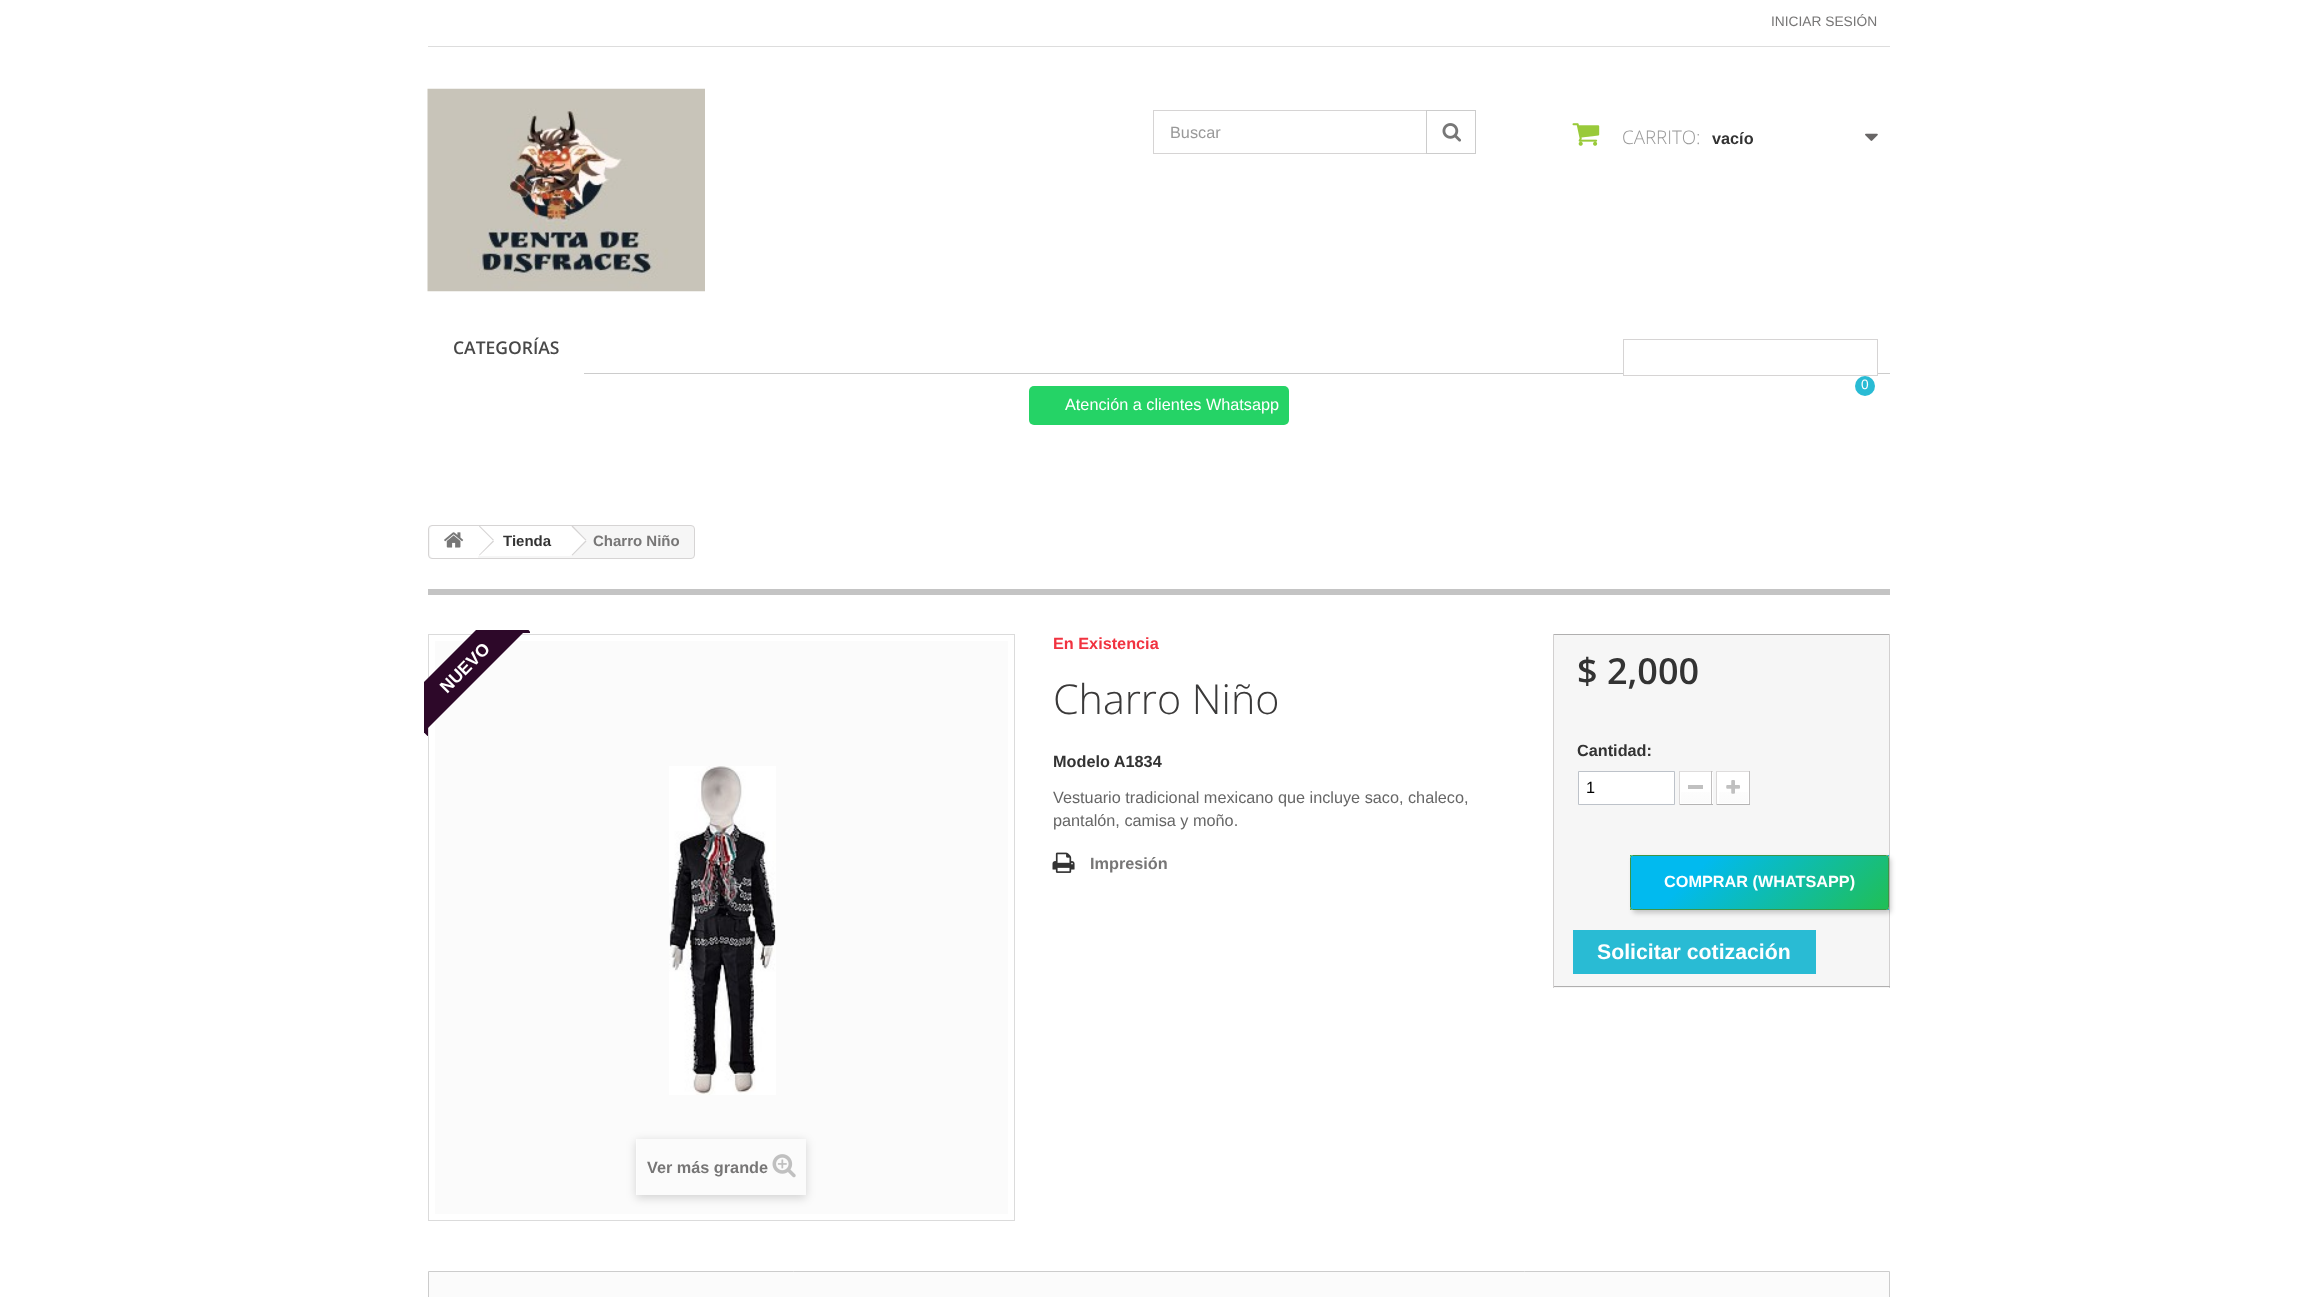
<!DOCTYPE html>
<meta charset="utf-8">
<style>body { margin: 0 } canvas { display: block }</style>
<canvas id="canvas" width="2317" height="1297"></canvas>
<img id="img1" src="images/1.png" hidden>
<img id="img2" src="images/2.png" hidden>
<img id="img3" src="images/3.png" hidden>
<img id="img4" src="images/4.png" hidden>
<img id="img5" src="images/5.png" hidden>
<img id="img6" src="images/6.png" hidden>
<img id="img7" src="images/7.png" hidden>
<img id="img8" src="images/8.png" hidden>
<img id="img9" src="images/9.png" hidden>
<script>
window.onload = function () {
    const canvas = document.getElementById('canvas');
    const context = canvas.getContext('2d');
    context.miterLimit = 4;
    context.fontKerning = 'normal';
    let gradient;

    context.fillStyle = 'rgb(255, 255, 255)';
    context.fillRect(0, 0, 2317, 1297);
    context.fillStyle = 'rgb(221, 221, 221)';
    context.fillRect(428, 46, 1462, 1);
    context.drawImage(document.getElementById('img1'), 427, 88, 278, 204);
    context.strokeStyle = 'rgb(214, 212, 212)';
    context.strokeRect(1153.5, 110.5, 322, 43);
    context.strokeStyle = 'rgb(204, 204, 204)';
    context.strokeRect(1426.5, 110.5, 49, 43);
    context.drawImage(document.getElementById('img2'), 1442, 123, 19, 19);
    context.drawImage(document.getElementById('img3'), 1572, 123, 28, 23);
    context.drawImage(document.getElementById('img4'), 1865, 133, 13, 8);
    context.fillStyle = 'rgb(204, 204, 204)';
    context.fillRect(584, 373, 1306, 1);
    context.fillStyle = 'rgb(255, 255, 255)';
    context.fillRect(1624, 373, 253, 1);
    context.strokeStyle = 'rgb(214, 212, 212)';
    context.strokeRect(1623.5, 339.5, 254, 36);
    context.fillStyle = 'rgb(41, 187, 212)';
    context.beginPath();
    context.arc(1865, 386, 10, 0, 2 * Math.PI);
    context.fill();
    context.fillStyle = 'rgb(37, 211, 102)';
    context.beginPath();
    context.roundRect(1029, 386, 260, 39, 5);
    context.fill();
    context.fillStyle = 'rgb(246, 246, 246)';
    context.beginPath();
    context.roundRect(428.5, 525.5, 266, 33, 3.5);
    context.fill();
    context.stroke();
    context.fillStyle = 'rgb(255, 255, 255)';
    context.beginPath();
    context.roundRect(430, 526, 48, 32, [4, 0, 0, 4]);
    context.fill();
    context.drawImage(document.getElementById('img5'), 444, 532, 20, 16);
    context.fillRect(478, 526, 92, 30);
    context.fillStyle = 'rgb(214, 212, 212)';
    context.beginPath();
    context.moveTo(479.5, 525.5);
    context.lineTo(494, 540);
    context.lineTo(493, 540.5);
    context.lineTo(479, 526.5);
    context.closePath();
    context.fill();
    context.beginPath();
    context.moveTo(493, 540.5);
    context.lineTo(494, 541.5);
    context.lineTo(479.5, 555.5);
    context.lineTo(479, 555);
    context.closePath();
    context.fill();
    context.fillStyle = 'rgb(255, 255, 255)';
    context.beginPath();
    context.moveTo(573, 526.5);
    context.lineTo(572.5, 526);
    context.lineTo(570, 526);
    context.lineTo(569.5, 526.5);
    context.lineTo(557.5, 539);
    context.bezierCurveTo(556.5, 540, 556.5, 541.5, 557.5, 542.5);
    context.lineTo(569.5, 555);
    context.bezierCurveTo(570.5, 556, 572, 556, 573, 555);
    context.lineTo(585.5, 542.5);
    context.bezierCurveTo(586.5, 541.5, 586.5, 540, 585.5, 539);
    context.closePath();
    context.fill();
    context.fillStyle = 'rgb(214, 212, 212)';
    context.beginPath();
    context.moveTo(572.5, 525.5);
    context.lineTo(586.5, 540);
    context.lineTo(585.5, 540.5);
    context.lineTo(571.5, 526.5);
    context.closePath();
    context.fill();
    context.beginPath();
    context.moveTo(585.5, 540.5);
    context.lineTo(586.5, 541.5);
    context.lineTo(572.5, 555.5);
    context.lineTo(571.5, 555);
    context.closePath();
    context.fill();
    context.fillStyle = 'rgb(196, 196, 196)';
    context.fillRect(428, 589, 1462, 6);
    context.strokeStyle = 'rgb(219, 219, 219)';
    context.strokeRect(428.5, 634.5, 586, 586);
    context.fillStyle = 'rgb(251, 251, 251)';
    context.fillRect(435, 641, 573, 573);
    context.save();
    context.beginPath();
    context.rect(424, 630, 106, 106);
    context.clip();
    context.fillStyle = 'rgb(45, 8, 41)';
    context.beginPath();
    context.moveTo(394, 712);
    context.lineTo(509, 597);
    context.lineTo(534, 622);
    context.lineTo(419, 737);
    context.closePath();
    context.fill();
    context.beginPath();
    context.moveTo(531.5, 633);
    context.lineTo(521.5, 633);
    context.lineTo(526.5, 628);
    context.closePath();
    context.fill();
    context.beginPath();
    context.moveTo(428, 726.5);
    context.lineTo(428, 736.5);
    context.lineTo(423, 731.5);
    context.closePath();
    context.fill();
    context.restore();
    context.drawImage(document.getElementById('img6'), 669, 766, 107, 329);
    context.save();
    context.beginPath();
    context.moveTo(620, 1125);
    context.lineTo(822, 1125);
    context.lineTo(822, 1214);
    context.lineTo(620, 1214);
    context.closePath();
    context.moveTo(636, 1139);
    context.lineTo(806, 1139);
    context.lineTo(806, 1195);
    context.lineTo(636, 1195);
    context.closePath();
    context.clip('evenodd');
    context.fillStyle = 'rgba(0, 0, 0, 0.16)';
    context.filter = 'blur(5px)';
    context.beginPath();
    context.rect(636, 1141, 170, 57);
    context.fill();
    context.filter = 'none';
    context.restore();
    context.fillStyle = 'rgba(255, 255, 255, 0.5)';
    context.fillRect(636, 1139, 1, 56);
    context.drawImage(document.getElementById('img7'), 772, 1154, 24, 24);
    context.drawImage(document.getElementById('img8'), 1052, 852, 23, 21);
    context.fillStyle = 'rgb(246, 246, 246)';
    context.fillRect(1554, 635, 335, 353);
    context.fillStyle = 'rgb(176, 175, 175)';
    context.fillRect(1553, 634, 337, 1);
    context.fillStyle = 'rgb(210, 208, 208)';
    context.fillRect(1889, 634, 1, 354);
    context.fillStyle = 'rgb(176, 175, 175)';
    context.fillRect(1553, 986, 337, 1);
    context.fillStyle = 'rgb(210, 208, 208)';
    context.fillRect(1553, 634, 1, 354);
    context.fillStyle = 'rgb(255, 255, 255)';
    context.beginPath();
    context.rect(1578.5, 771.5, 96, 33);
    context.fill();
    context.strokeStyle = 'rgb(189, 194, 201)';
    context.stroke();
    context.fillRect(1680, 772, 33, 32);
    context.fillStyle = 'rgb(222, 220, 220)';
    context.fillRect(1679, 771, 34, 1);
    context.fillStyle = 'rgb(193, 191, 191)';
    context.fillRect(1711, 771, 1, 34);
    context.fillStyle = 'rgb(181, 180, 180)';
    context.fillRect(1679, 804, 34, 1);
    context.fillStyle = 'rgb(218, 216, 216)';
    context.fillRect(1679, 771, 1, 34);
    gradient = context.createLinearGradient(1696, 774, 1696, 803);
    gradient.addColorStop(0, 'rgb(255, 255, 255)');
    gradient.addColorStop(1, 'rgb(251, 251, 251)');
    context.fillStyle = gradient;
    context.fillRect(1681, 792, 29, 11);
    context.fillStyle = 'rgb(192, 192, 192)';
    context.fillRect(1688, 785, 15, 4);
    context.fillStyle = 'rgb(255, 255, 255)';
    context.fillRect(1717, 772, 32, 32);
    context.fillStyle = 'rgb(222, 220, 220)';
    context.fillRect(1716, 771, 34, 1);
    context.fillStyle = 'rgb(193, 191, 191)';
    context.fillRect(1749, 771, 1, 34);
    context.fillStyle = 'rgb(181, 180, 180)';
    context.fillRect(1716, 804, 34, 1);
    context.fillStyle = 'rgb(218, 216, 216)';
    context.fillRect(1716, 771, 1, 34);
    gradient = context.createLinearGradient(1733, 774, 1733, 803);
    gradient.addColorStop(0, 'rgb(255, 255, 255)');
    gradient.addColorStop(1, 'rgb(251, 251, 251)');
    context.fillStyle = gradient;
    context.fillRect(1719, 792, 29, 11);
    context.drawImage(document.getElementById('img9'), 1726, 780, 14, 14);
    context.fillStyle = 'rgba(0, 0, 0, 0.2)';
    context.filter = 'blur(2.5px)';
    context.beginPath();
    context.roundRect(1633, 858, 258, 55, 2.5);
    context.fill();
    context.filter = 'none';
    gradient = context.createLinearGradient(1580, 907, 1426, 753);
    gradient.addColorStop(0, 'rgb(32, 191, 85)');
    gradient.addColorStop(0.74, 'rgb(1, 186, 239)');
    context.fillStyle = gradient;
    context.fillRect(1630, 855, 1, 1);
    gradient = context.createLinearGradient(2093, 907, 1938, 753);
    gradient.addColorStop(0, 'rgb(32, 191, 85)');
    gradient.addColorStop(0.74, 'rgb(1, 186, 239)');
    context.fillStyle = gradient;
    context.fillRect(1888, 855, 1, 1);
    gradient = context.createLinearGradient(1837, 960, 1682, 805);
    gradient.addColorStop(0, 'rgb(32, 191, 85)');
    gradient.addColorStop(0.74, 'rgb(1, 186, 239)');
    context.fillStyle = gradient;
    context.fillRect(1631, 856, 257, 53);
    gradient = context.createLinearGradient(1580, 1012, 1426, 858);
    gradient.addColorStop(0, 'rgb(32, 191, 85)');
    gradient.addColorStop(0.74, 'rgb(1, 186, 239)');
    context.fillStyle = gradient;
    context.fillRect(1630, 909, 1, 1);
    gradient = context.createLinearGradient(2093, 1012, 1938, 858);
    gradient.addColorStop(0, 'rgb(32, 191, 85)');
    gradient.addColorStop(0.74, 'rgb(1, 186, 239)');
    context.fillStyle = gradient;
    context.fillRect(1888, 909, 1, 1);
    context.beginPath();
    context.roundRect(1630.5, 855.5, 258, 54, 2);
    context.strokeStyle = 'rgb(62, 149, 70)';
    context.stroke();
    context.fillStyle = 'rgb(41, 187, 212)';
    context.fillRect(1573, 930, 243, 44);
    context.fillStyle = 'rgb(251, 251, 251)';
    context.beginPath();
    context.rect(428.5, 1271.5, 1461, 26);
    context.fill();
    context.strokeStyle = 'rgb(204, 204, 204)';
    context.stroke();
    context.font = '13.75px Liberation Sans';
    context.fillStyle = 'rgb(119, 118, 118)';
    context.fillText('INICIAR SESIÓN', 1771, 26);
    context.font = '16.25px Liberation Sans';
    context.fillStyle = 'rgb(153, 153, 153)';
    context.fillText('Buscar', 1170, 138);
    context.font = '300 18.75px Open Sans';
    context.fillText('CARRITO:', 1622, 144);
    context.font = 'bold 16.25px Liberation Sans';
    context.fillStyle = 'rgb(51, 51, 51)';
    context.fillText('vacío', 1712, 144);
    context.font = '600 17.5px Open Sans';
    context.fillStyle = 'rgb(72, 72, 72)';
    context.fillText('CATEGORÍAS', 453, 354);
    context.font = '13.75px Liberation Sans';
    context.fillStyle = 'rgb(255, 255, 255)';
    context.fillText('0', 1861, 389);
    context.font = '16.25px Liberation Sans';
    context.fillText('Atención a clientes Whatsapp', 1065, 410);
    context.font = 'bold 15px Liberation Sans';
    context.fillStyle = 'rgb(51, 51, 51)';
    context.fillText('Tienda', 503, 546);
    context.fillStyle = 'rgb(119, 118, 118)';
    context.fillText('Charro Niño', 593, 546);
    context.font = 'bold 17.5px Liberation Sans';
    context.fillStyle = 'rgb(255, 255, 255)';
    context.save();
    context.translate(447, 694);
    context.rotate(-45 * Math.PI / 180);
    context.fillText('NUEVO', 0, 0);
    context.restore();
    context.font = 'bold 16.25px Liberation Sans';
    context.fillStyle = 'rgb(119, 118, 118)';
    context.fillText('Ver más grande', 647, 1173);
    context.fillStyle = 'rgb(241, 51, 64)';
    context.fillText('En Existencia', 1053, 649);
    context.font = '300 41.25px Open Sans';
    context.fillStyle = 'rgb(58, 57, 57)';
    context.fillText('Charro Niño', 1053, 714);
    context.font = 'bold 16.25px Liberation Sans';
    context.fillStyle = 'rgb(51, 51, 51)';
    context.fillText('Modelo A1834', 1053, 767);
    context.font = '16.25px Liberation Sans';
    context.fillStyle = 'rgb(102, 102, 102)';
    context.fillText('Vestuario tradicional mexicano que incluye saco, chaleco,', 1053, 803);
    context.fillText('pantalón, camisa y moño.', 1053, 826);
    context.font = 'bold 16.25px Liberation Sans';
    context.fillStyle = 'rgb(119, 118, 118)';
    context.fillText('Impresión', 1090, 869);
    context.font = '600 36px Open Sans';
    context.fillStyle = 'rgb(51, 51, 51)';
    context.fillText('$ 2,000', 1577, 684);
    context.font = 'bold 16.25px Liberation Sans';
    context.fillText('Cantidad:', 1577, 756);
    context.font = '16.25px Liberation Sans';
    context.fillStyle = 'rgb(0, 0, 0)';
    context.fillText('1', 1586, 793);
    context.font = 'bold 16.25px Liberation Sans';
    context.fillStyle = 'rgb(255, 255, 255)';
    context.fillText('COMPRAR (WHATSAPP)', 1664, 887);
    context.font = 'bold 21.25px Liberation Sans';
    context.fillText('Solicitar cotización', 1597, 959);
};
</script>
